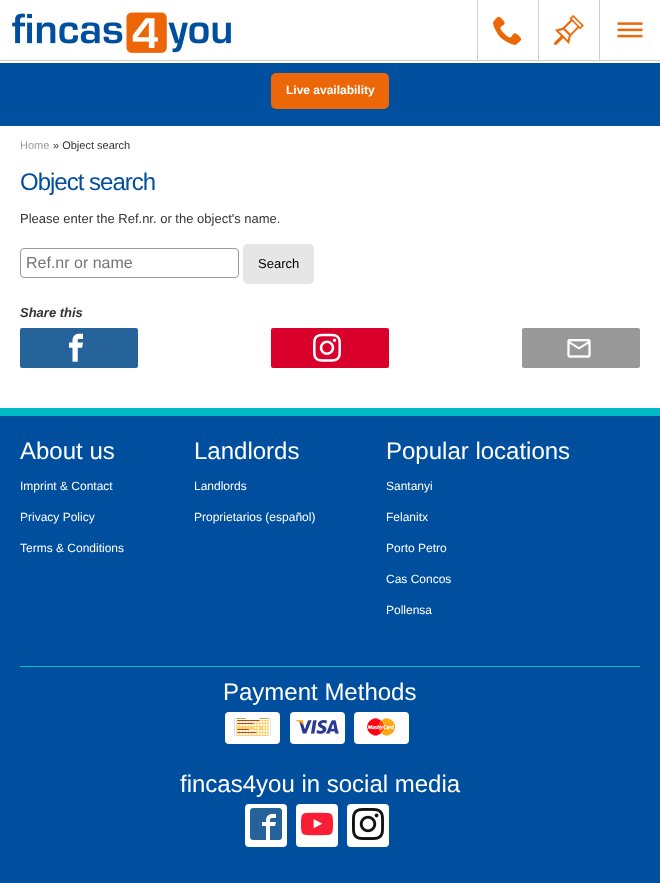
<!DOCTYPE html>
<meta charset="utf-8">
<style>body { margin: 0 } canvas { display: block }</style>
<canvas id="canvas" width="660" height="883"></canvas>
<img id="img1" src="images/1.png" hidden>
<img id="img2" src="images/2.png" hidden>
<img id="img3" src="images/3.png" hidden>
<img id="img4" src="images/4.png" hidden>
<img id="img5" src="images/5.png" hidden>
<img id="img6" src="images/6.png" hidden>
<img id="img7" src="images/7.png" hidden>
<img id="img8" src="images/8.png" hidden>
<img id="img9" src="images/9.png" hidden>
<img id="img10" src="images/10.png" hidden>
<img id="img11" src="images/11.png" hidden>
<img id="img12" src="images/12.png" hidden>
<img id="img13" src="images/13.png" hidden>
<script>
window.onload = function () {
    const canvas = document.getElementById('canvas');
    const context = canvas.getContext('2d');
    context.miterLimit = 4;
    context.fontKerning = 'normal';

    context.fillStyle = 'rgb(255, 255, 255)';
    context.fillRect(0, 0, 660, 883);
    context.fillStyle = 'rgb(207, 207, 207)';
    context.fillRect(0, 60, 660, 1);
    context.drawImage(document.getElementById('img1'), 12, 12, 219, 41);
    context.fillRect(477, 0, 1, 60);
    context.drawImage(document.getElementById('img2'), 493, 16, 29, 29);
    context.fillRect(538, 0, 1, 60);
    context.drawImage(document.getElementById('img3'), 554, 15, 30, 30);
    context.fillRect(599, 0, 1, 60);
    context.drawImage(document.getElementById('img4'), 617, 22, 26, 16);
    context.fillStyle = 'rgb(0, 80, 159)';
    context.fillRect(0, 63, 660, 63);
    context.fillStyle = 'rgb(236, 103, 8)';
    context.beginPath();
    context.roundRect(271, 73, 118, 36, 5);
    context.fill();
    context.beginPath();
    context.roundRect(20.5, 248.5, 218, 29, 3.5);
    context.strokeStyle = 'rgb(153, 153, 153)';
    context.stroke();
    context.fillStyle = 'rgb(230, 230, 230)';
    context.beginPath();
    context.roundRect(243, 244, 71, 40, 5);
    context.fill();
    context.fillStyle = 'rgb(38, 99, 154)';
    context.beginPath();
    context.roundRect(20, 328, 118, 40, 2);
    context.fill();
    context.drawImage(document.getElementById('img5'), 69, 333, 14, 29);
    context.fillStyle = 'rgb(218, 0, 44)';
    context.beginPath();
    context.roundRect(271, 328, 118, 40, 2);
    context.fill();
    context.drawImage(document.getElementById('img6'), 313, 333, 28, 29);
    context.fillStyle = 'rgb(153, 153, 153)';
    context.beginPath();
    context.roundRect(522, 328, 118, 40, 2);
    context.fill();
    context.drawImage(document.getElementById('img7'), 567, 339, 24, 19);
    context.fillStyle = 'rgb(0, 79, 159)';
    context.fillRect(0, 416, 660, 467);
    context.fillStyle = 'rgb(0, 187, 197)';
    context.fillRect(0, 408, 660, 8);
    context.fillRect(20, 666, 620, 1);
    context.fillStyle = 'rgb(255, 255, 255)';
    context.beginPath();
    context.roundRect(225, 712, 55, 32, 4);
    context.fill();
    context.drawImage(document.getElementById('img8'), 234, 718, 37, 18);
    context.beginPath();
    context.roundRect(290, 712, 55, 32, 4);
    context.fill();
    context.drawImage(document.getElementById('img9'), 295, 720, 44, 14);
    context.beginPath();
    context.roundRect(354, 712, 55, 32, 4);
    context.fill();
    context.drawImage(document.getElementById('img10'), 367, 718, 28, 18);
    context.beginPath();
    context.roundRect(245, 804, 42, 43, 4);
    context.fill();
    context.drawImage(document.getElementById('img11'), 250, 808, 32, 32);
    context.beginPath();
    context.roundRect(296, 804, 42, 43, 4);
    context.fill();
    context.drawImage(document.getElementById('img12'), 301, 812, 32, 24);
    context.beginPath();
    context.roundRect(347, 804, 42, 43, 4);
    context.fill();
    context.drawImage(document.getElementById('img13'), 352, 808, 32, 32);
    context.font = 'bold 12px Liberation Sans';
    context.fillText('Live availability', 286, 94);
    context.font = '11px Liberation Sans';
    context.fillStyle = 'rgb(153, 153, 153)';
    context.fillText('Home', 20, 149);
    context.fillStyle = 'rgb(51, 51, 51)';
    context.fillText('» Object search', 53, 149);
    context.letterSpacing = '-1px';
    context.font = '24px Liberation Sans';
    context.fillStyle = 'rgb(0, 79, 159)';
    context.fillText('Object search', 20, 190);
    context.letterSpacing = '0px';
    context.font = '13px Liberation Sans';
    context.fillStyle = 'rgb(51, 51, 51)';
    context.fillText('Please enter the Ref.nr. or the object\'s name.', 20, 223);
    context.font = '16px Liberation Sans';
    context.fillStyle = 'rgb(117, 117, 117)';
    context.fillText('Ref.nr or name', 26, 268);
    context.font = '13px Liberation Sans';
    context.fillStyle = 'rgb(0, 0, 0)';
    context.fillText('Search', 258, 268);
    context.font = 'italic bold 13px Liberation Sans';
    context.fillStyle = 'rgb(51, 51, 51)';
    context.fillText('Share this', 20, 317);
    context.font = '24px Liberation Sans';
    context.fillStyle = 'rgb(255, 255, 255)';
    context.fillText('About us', 20, 459);
    context.font = '12px Liberation Sans';
    context.fillText('Imprint & Contact', 20, 490);
    context.fillText('Privacy Policy', 20, 521);
    context.fillText('Terms & Conditions', 20, 552);
    context.font = '24px Liberation Sans';
    context.fillText('Landlords', 194, 459);
    context.font = '12px Liberation Sans';
    context.fillText('Landlords', 194, 490);
    context.fillText('Proprietarios (español)', 194, 521);
    context.font = '24px Liberation Sans';
    context.fillText('Popular locations', 386, 459);
    context.font = '12px Liberation Sans';
    context.fillText('Santanyi', 386, 490);
    context.fillText('Felanitx', 386, 521);
    context.fillText('Porto Petro', 386, 552);
    context.fillText('Cas Concos', 386, 583);
    context.fillText('Pollensa', 386, 614);
    context.font = '24px Liberation Sans';
    context.fillText('Payment Methods', 223, 700);
    context.fillText('fincas4you in social media', 180, 792);
};
</script>
